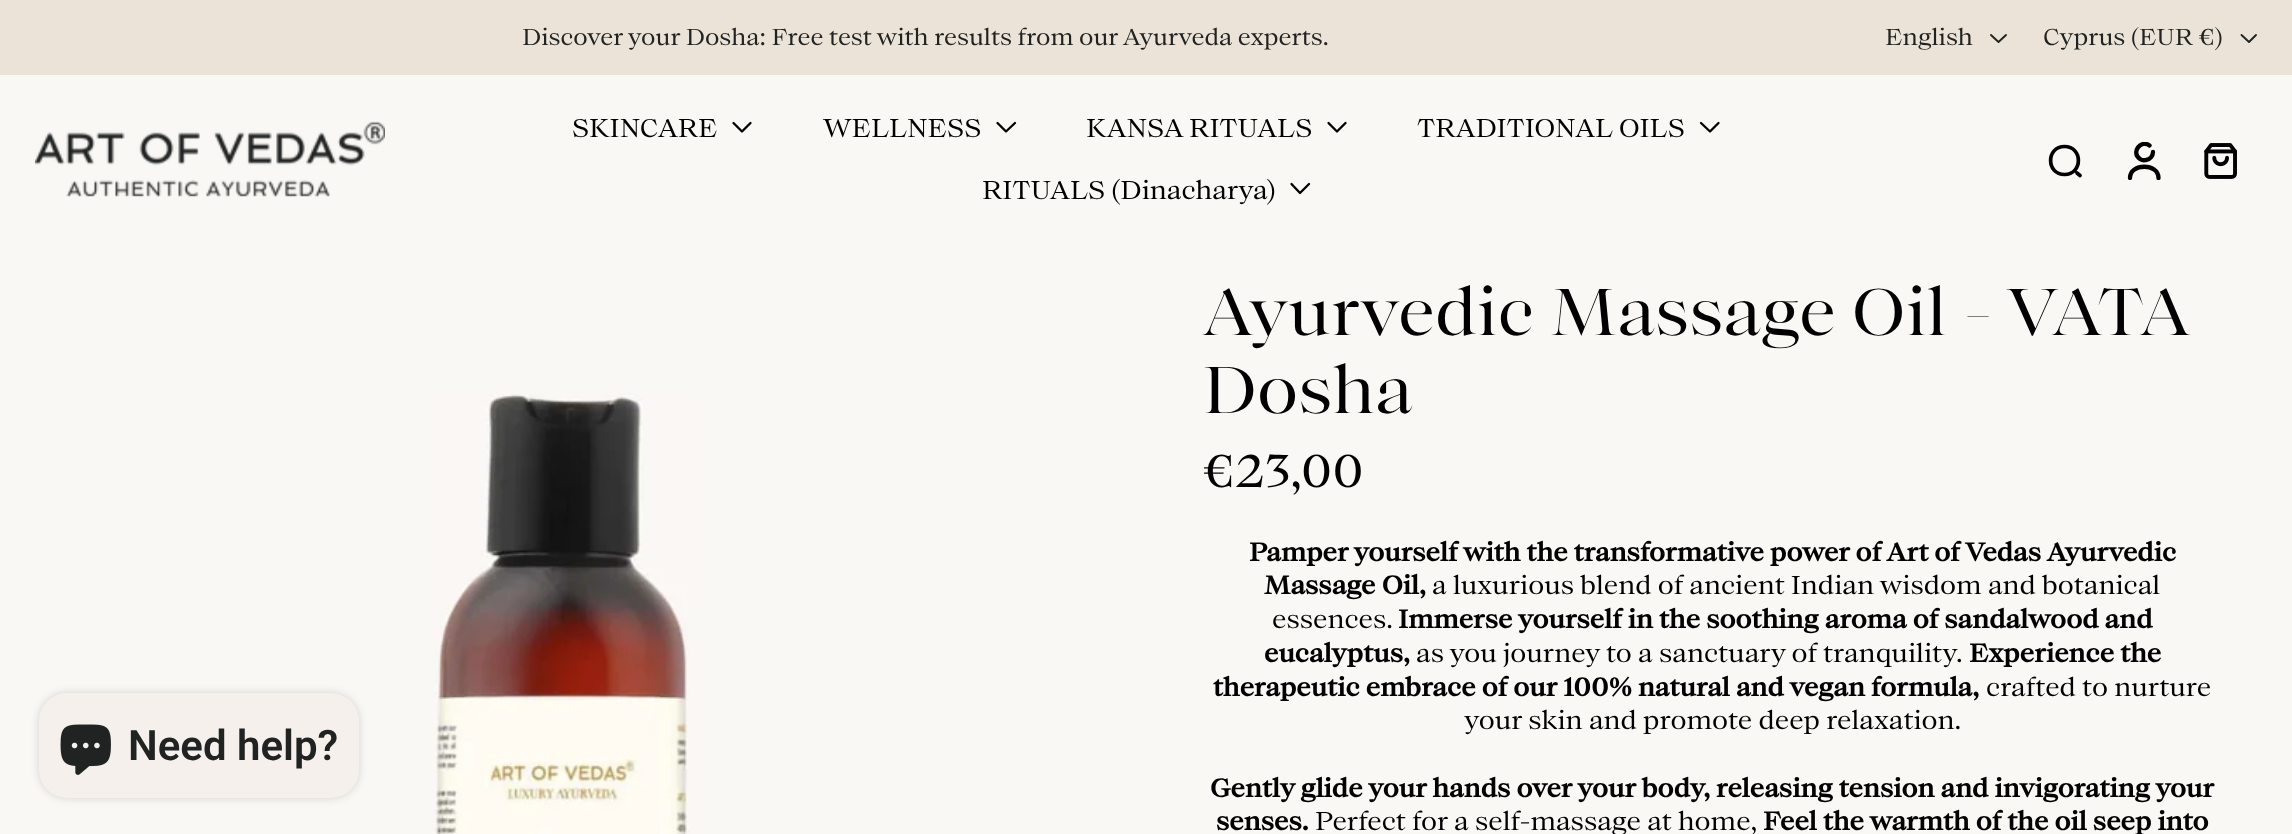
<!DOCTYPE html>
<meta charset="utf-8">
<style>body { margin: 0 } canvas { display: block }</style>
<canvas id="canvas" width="2292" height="834"></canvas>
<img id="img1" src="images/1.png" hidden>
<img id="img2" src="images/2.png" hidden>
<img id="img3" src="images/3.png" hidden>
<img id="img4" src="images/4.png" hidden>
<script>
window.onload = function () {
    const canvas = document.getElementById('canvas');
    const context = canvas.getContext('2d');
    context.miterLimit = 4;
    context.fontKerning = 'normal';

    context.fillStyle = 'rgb(250, 248, 245)';
    context.fillRect(0, 0, 2292, 834);
    context.fillStyle = 'rgba(0, 0, 0, 0.15)';
    context.filter = 'blur(4.5px)';
    context.beginPath();
    context.roundRect(39, 693, 320, 105, 28);
    context.fill();
    context.filter = 'none';
    context.fillStyle = 'rgb(245, 240, 235)';
    context.beginPath();
    context.roundRect(39, 693, 320, 105, 28);
    context.fill();
    context.drawImage(document.getElementById('img1'), 60, 724, 51, 51);
    context.fillStyle = 'rgb(235, 227, 215)';
    context.fillRect(0, 0, 2292, 75);
    context.beginPath();
    context.moveTo(1991, 35);
    context.lineTo(1998.5, 42);
    context.lineTo(2006, 35);
    context.strokeStyle = 'rgb(33, 35, 34)';
    context.lineWidth = 1.9;
    context.lineCap = 'round';
    context.lineJoin = 'round';
    context.stroke();
    context.beginPath();
    context.moveTo(2241.5, 35);
    context.lineTo(2249, 42);
    context.lineTo(2256, 35);
    context.stroke();
    context.drawImage(document.getElementById('img2'), 35, 121, 350, 76);
    context.beginPath();
    context.moveTo(733.5, 123);
    context.lineTo(742, 131.5);
    context.lineTo(750.5, 123);
    context.strokeStyle = 'rgb(0, 0, 0)';
    context.lineWidth = 2.3;
    context.stroke();
    context.beginPath();
    context.moveTo(997.5, 123);
    context.lineTo(1006, 131.5);
    context.lineTo(1015, 123);
    context.stroke();
    context.beginPath();
    context.moveTo(1328.5, 123);
    context.lineTo(1337, 131.5);
    context.lineTo(1345.5, 123);
    context.stroke();
    context.beginPath();
    context.moveTo(1701, 123);
    context.lineTo(1710, 131.5);
    context.lineTo(1718.5, 123);
    context.stroke();
    context.beginPath();
    context.moveTo(1291.5, 184);
    context.lineTo(1300, 193);
    context.lineTo(1309, 184);
    context.stroke();
    context.beginPath();
    context.moveTo(2064.5, 174.5);
    context.bezierCurveTo(2083, 174.5, 2083, 146.5, 2064.5, 146.5);
    context.bezierCurveTo(2046, 146.5, 2046, 174.5, 2064.5, 174.5);
    context.closePath();
    context.moveTo(2080, 175.5);
    context.lineTo(2077, 173);
    context.lineWidth = 3.7;
    context.stroke();
    context.save();
    context.beginPath();
    context.rect(2125, 142, 38, 38);
    context.clip();
    context.beginPath();
    context.moveTo(2149.5, 145.5);
    context.bezierCurveTo(2141, 139, 2130.5, 152.5, 2140, 159);
    context.bezierCurveTo(2141.5, 160, 2144, 160.5, 2146, 160);
    context.bezierCurveTo(2150, 159.5, 2153, 156, 2153, 152);
    context.moveTo(2158.5, 178);
    context.bezierCurveTo(2158.5, 163, 2130, 163, 2130, 178);
    context.lineWidth = 4.3;
    context.stroke();
    context.restore();
    context.drawImage(document.getElementById('img3'), 2204, 143, 33, 36);
    context.drawImage(document.getElementById('img4'), 432, 393, 258, 441);
    context.font = '600 42px Roboto';
    context.fillStyle = 'rgb(33, 35, 34)';
    context.fillText('Need help?', 128, 760);
    context.font = '22.05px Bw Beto';
    context.fillText('Discover your Dosha: Free test with results from our Ayurveda experts.', 522, 45);
    context.fillText('English', 1885, 45);
    context.fillText('Cyprus (EUR €)', 2043, 45);
    context.font = '24.5px Bw Beto';
    context.fillStyle = 'rgb(0, 0, 0)';
    context.fillText('SKINCARE', 572, 137);
    context.fillText('WELLNESS', 823, 137);
    context.fillText('KANSA RITUALS', 1086, 137);
    context.fillText('TRADITIONAL OILS', 1417, 137);
    context.fillText('RITUALS (Dinacharya)', 982, 199);
    context.wordSpacing = '-0.5px';
    context.font = '63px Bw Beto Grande';
    context.fillText('Ayurvedic Massage Oil - VATA', 1202, 335);
    context.wordSpacing = '0px';
    context.fillText('Dosha', 1202, 413);
    context.font = '44px Bw Beto';
    context.fillText('€23,00', 1202, 487);
    context.font = 'bold 24.5px Bw Beto';
    context.fillText('Pamper yourself with the transformative power of Art of Vedas Ayurvedic', 1249, 561);
    context.fillText('Massage Oil,', 1264, 594);
    context.font = '24.5px Bw Beto';
    context.fillText('a luxurious blend of ancient Indian wisdom and botanical', 1432, 594);
    context.fillText('essences.', 1272, 628);
    context.font = 'bold 24.5px Bw Beto';
    context.fillText('Immerse yourself in the soothing aroma of sandalwood and', 1398, 628);
    context.fillText('eucalyptus,', 1264, 662);
    context.font = '24.5px Bw Beto';
    context.fillText('as you journey to a sanctuary of tranquility.', 1416, 662);
    context.font = 'bold 24.5px Bw Beto';
    context.fillText('Experience the', 1969, 662);
    context.fillText('therapeutic embrace of our 100% natural and vegan formula,', 1213, 696);
    context.font = '24.5px Bw Beto';
    context.fillText('crafted to nurture', 1986, 696);
    context.fillText('your skin and promote deep relaxation.', 1464, 729);
    context.font = 'bold 24.5px Bw Beto';
    context.fillText('Gently glide your hands over your body, releasing tension and invigorating your', 1210, 797);
    context.fillText('senses.', 1216, 830);
    context.font = '24.5px Bw Beto';
    context.fillText('Perfect for a self-massage at home,', 1315, 830);
    context.font = 'bold 24.5px Bw Beto';
    context.fillText('Feel the warmth of the oil seep into', 1763, 830);
};
</script>
